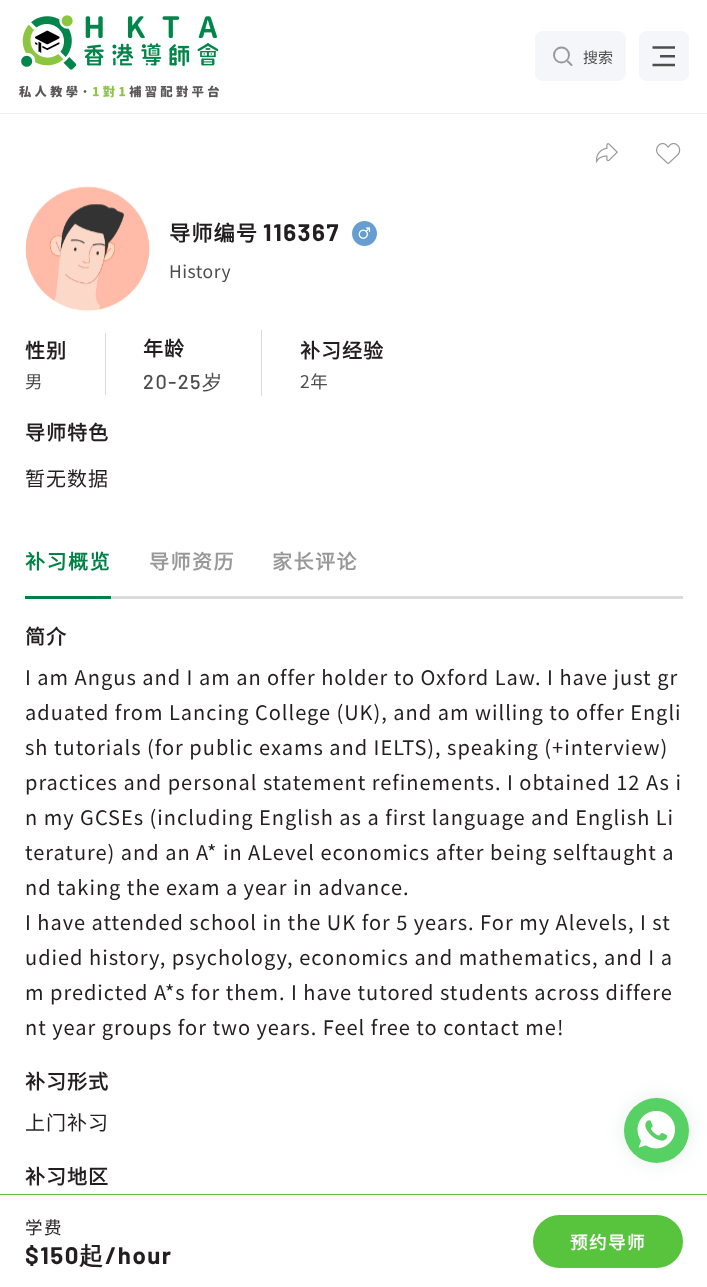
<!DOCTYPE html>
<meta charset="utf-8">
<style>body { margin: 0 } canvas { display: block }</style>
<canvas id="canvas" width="707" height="1287"></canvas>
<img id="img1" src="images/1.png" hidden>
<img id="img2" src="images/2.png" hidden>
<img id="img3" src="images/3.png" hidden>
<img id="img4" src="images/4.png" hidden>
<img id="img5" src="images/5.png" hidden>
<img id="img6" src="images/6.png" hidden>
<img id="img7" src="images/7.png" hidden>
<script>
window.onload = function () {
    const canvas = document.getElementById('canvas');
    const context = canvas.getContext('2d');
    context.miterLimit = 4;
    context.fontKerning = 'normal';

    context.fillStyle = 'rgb(255, 255, 255)';
    context.fillRect(0, 0, 707, 1287);
    context.fillStyle = 'rgb(239, 239, 239)';
    context.fillRect(0, 113, 707, 1);
    context.drawImage(document.getElementById('img1'), 19, 15, 200, 83);
    context.fillStyle = 'rgb(245, 246, 249)';
    context.beginPath();
    context.roundRect(535, 31, 91, 50, 8);
    context.fill();
    context.beginPath();
    context.arc(561.5, 55, 7.5, 0, 2 * Math.PI);
    context.strokeStyle = 'rgb(152, 152, 152)';
    context.lineWidth = 1.9;
    context.stroke();
    context.beginPath();
    context.moveTo(571.5, 65);
    context.lineTo(568, 61.5);
    context.lineCap = 'round';
    context.stroke();
    context.beginPath();
    context.roundRect(639, 31, 50, 50, 8);
    context.fill();
    context.drawImage(document.getElementById('img2'), 652, 46, 23, 21);
    context.drawImage(document.getElementById('img3'), 595, 143, 23, 20);
    context.drawImage(document.getElementById('img4'), 656, 143, 25, 21);
    context.drawImage(document.getElementById('img5'), 25, 186, 125, 126);
    context.drawImage(document.getElementById('img6'), 352, 221, 25, 25);
    context.fillStyle = 'rgb(219, 219, 219)';
    context.fillRect(105, 333, 1, 62);
    context.fillRect(261, 330, 1, 66);
    context.fillRect(111, 596, 572, 3);
    context.fillStyle = 'rgb(0, 129, 70)';
    context.fillRect(25, 596, 86, 3);
    context.fillStyle = 'rgb(88, 195, 60)';
    context.fillRect(0, 1194, 707, 1);
    context.beginPath();
    context.roundRect(533, 1215, 150, 53, 26.5);
    context.fill();
    context.fillStyle = 'rgba(204, 222, 214, 0.5)';
    context.filter = 'blur(10px)';
    context.beginPath();
    context.roundRect(624, 1098, 65, 65, 32.5);
    context.fill();
    context.filter = 'none';
    context.fillStyle = 'rgb(87, 209, 99)';
    context.beginPath();
    context.arc(656.5, 1130.5, 32.5, 0, 2 * Math.PI);
    context.fill();
    context.drawImage(document.getElementById('img7'), 637, 1110, 38, 39);
    context.font = '15px Noto Sans SC';
    context.fillStyle = 'rgb(77, 77, 77)';
    context.fillText('搜索', 583, 63);
    context.letterSpacing = '1px';
    context.font = 'bold 21.25px Noto Sans SC';
    context.fillStyle = 'rgb(35, 31, 32)';
    context.fillText('导师编号', 169, 241);
    context.letterSpacing = '1.5px';
    context.font = 'bold 24px Barlow';
    context.fillText('116367', 263, 241);
    context.letterSpacing = '0.5px';
    context.font = '17.5px Noto Sans SC';
    context.fillStyle = 'rgb(77, 77, 77)';
    context.fillText('History', 169, 278);
    context.letterSpacing = '1px';
    context.font = 'bold 20px Noto Sans SC';
    context.fillStyle = 'rgb(35, 31, 32)';
    context.fillText('性别', 25, 358);
    context.letterSpacing = '0.5px';
    context.font = '17.5px Noto Sans SC';
    context.fillStyle = 'rgb(77, 77, 77)';
    context.fillText('男', 25, 388);
    context.letterSpacing = '1px';
    context.font = 'bold 20px Noto Sans SC';
    context.fillStyle = 'rgb(35, 31, 32)';
    context.fillText('年龄', 143, 356);
    context.letterSpacing = '1.5px';
    context.font = '500 20px Barlow';
    context.fillStyle = 'rgb(77, 77, 77)';
    context.fillText('20-25', 143, 389);
    context.font = '500 20px WenQuanYi Zen Hei';
    context.fillText('岁', 202, 389);
    context.letterSpacing = '1px';
    context.font = 'bold 20px Noto Sans SC';
    context.fillStyle = 'rgb(35, 31, 32)';
    context.fillText('补习经验', 300, 358);
    context.letterSpacing = '0.5px';
    context.font = '17.5px Noto Sans SC';
    context.fillStyle = 'rgb(77, 77, 77)';
    context.fillText('2年', 300, 388);
    context.letterSpacing = '1px';
    context.font = 'bold 20px Noto Sans SC';
    context.fillStyle = 'rgb(35, 31, 32)';
    context.fillText('导师特色', 25, 440);
    context.font = '20px Noto Sans SC';
    context.fillText('暂无数据', 25, 486);
    context.letterSpacing = '1.5px';
    context.font = 'bold 20px Noto Sans SC';
    context.fillStyle = 'rgb(0, 129, 70)';
    context.fillText('补习概览', 25, 569);
    context.fillStyle = 'rgb(152, 152, 152)';
    context.fillText('导师资历', 149, 569);
    context.fillText('家长评论', 272, 569);
    context.letterSpacing = '1px';
    context.fillStyle = 'rgb(35, 31, 32)';
    context.fillText('简介', 25, 644);
    context.font = '20px Noto Sans SC';
    context.fillText('I am Angus and I am an offer holder to Oxford Law. I have just gr', 25, 685);
    context.fillText('aduated from Lancing College (UK), and am willing to offer Engli', 25, 720);
    context.fillText('sh tutorials (for public exams and IELTS), speaking (+interview)', 25, 755);
    context.fillText('practices and personal statement refinements. I obtained 12 As i', 25, 790);
    context.fillText('n my GCSEs (including English as a first language and English Li', 25, 825);
    context.fillText('terature) and an A* in ALevel economics after being selftaught a', 25, 860);
    context.fillText('nd taking the exam a year in advance.', 25, 895);
    context.fillText('I have attended school in the UK for 5 years. For my Alevels, I st', 25, 930);
    context.fillText('udied history, psychology, economics and mathematics, and I a', 25, 965);
    context.fillText('m predicted A*s for them. I have tutored students across differe', 25, 1000);
    context.fillText('nt year groups for two years. Feel free to contact me!', 25, 1035);
    context.font = 'bold 20px Noto Sans SC';
    context.fillText('补习形式', 25, 1089);
    context.font = '20px Noto Sans SC';
    context.fillText('上门补习', 25, 1130);
    context.font = 'bold 20px Noto Sans SC';
    context.fillText('补习地区', 25, 1184);
    context.letterSpacing = '1.5px';
    context.font = '17.5px Noto Sans SC';
    context.fillText('学费', 25, 1234);
    context.font = 'bold 24px Barlow';
    context.fillText('$150', 25, 1264);
    context.font = 'bold 24px WenQuanYi Zen Hei';
    context.fillText('起', 79, 1264);
    context.font = 'bold 24px Barlow';
    context.fillText('/hour', 105, 1264);
    context.font = 'bold 17.5px Noto Sans SC';
    context.fillStyle = 'rgb(255, 255, 255)';
    context.fillText('预约导师', 570, 1249);
};
</script>
